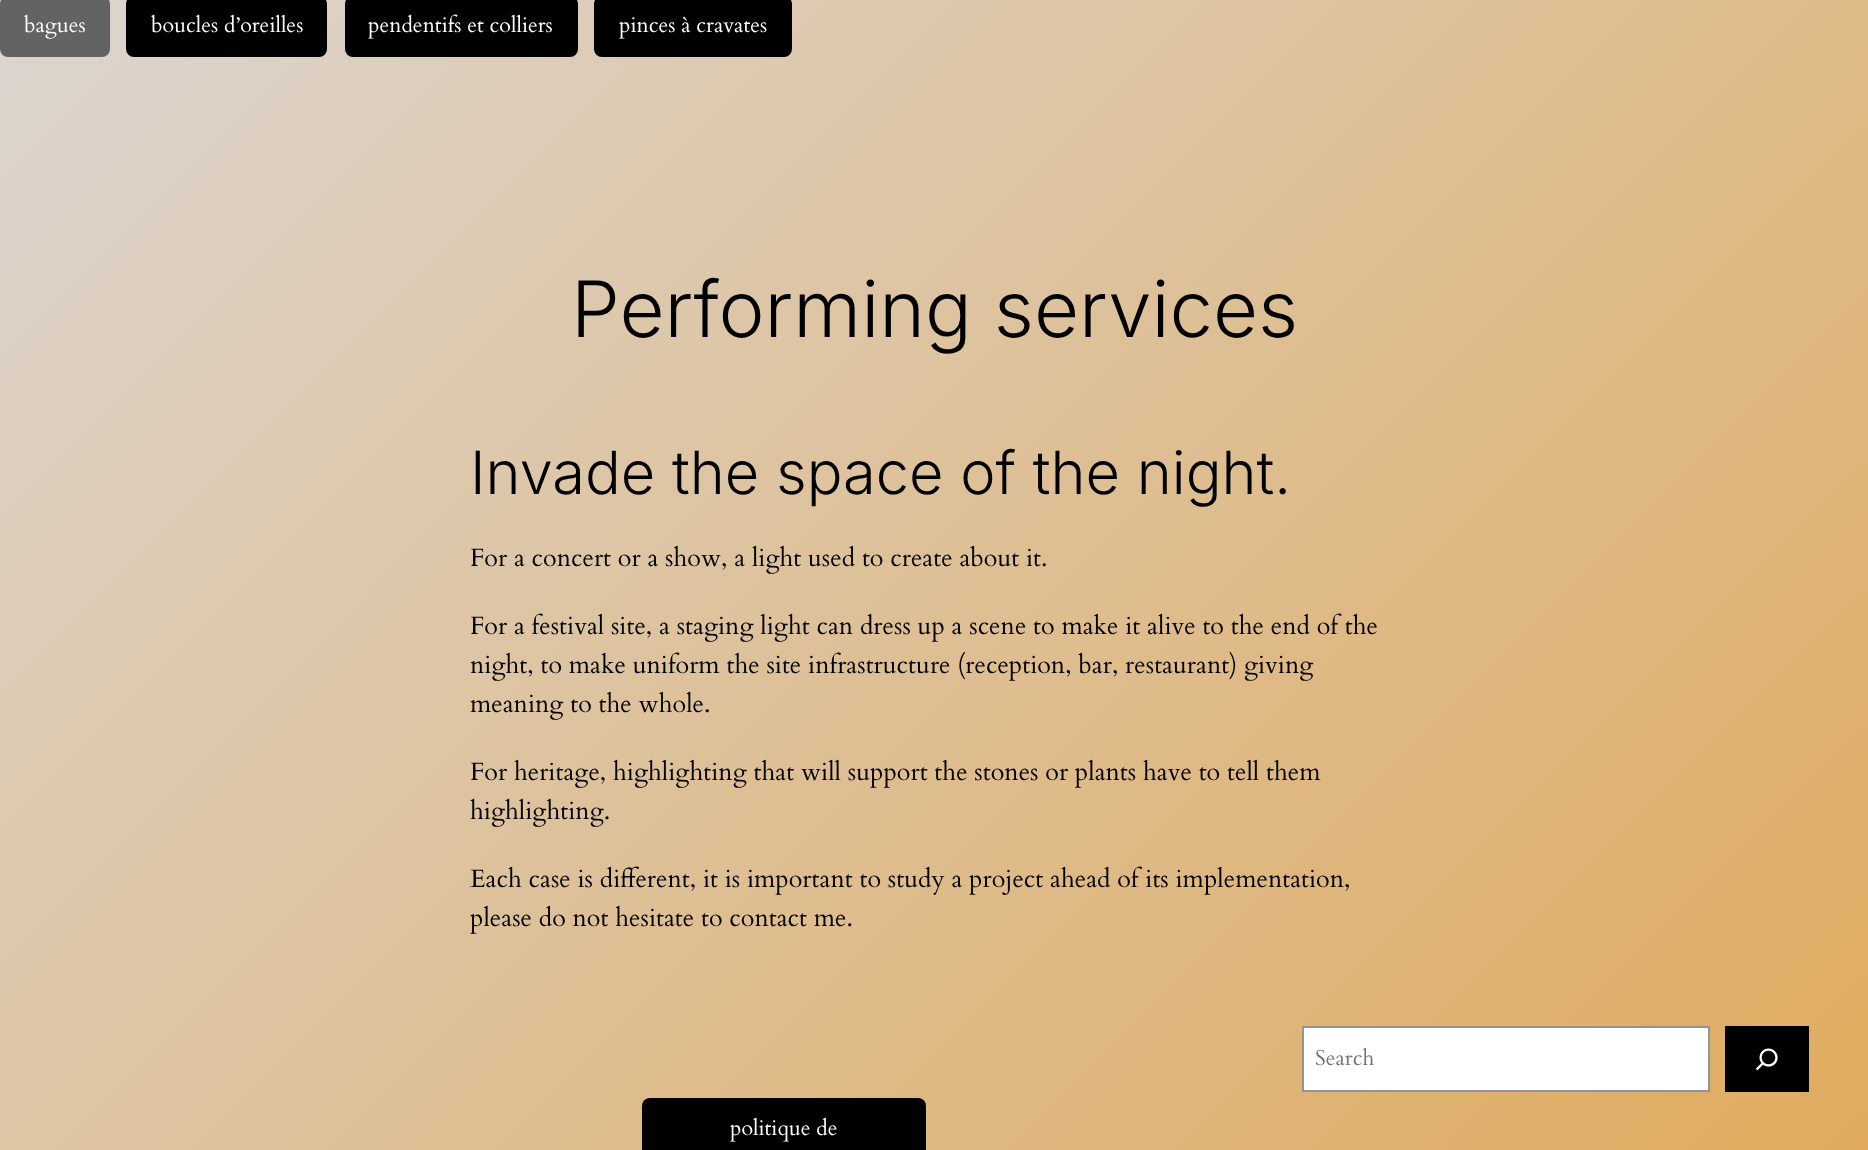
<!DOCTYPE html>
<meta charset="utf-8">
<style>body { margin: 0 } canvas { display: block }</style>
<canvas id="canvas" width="1868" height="1150"></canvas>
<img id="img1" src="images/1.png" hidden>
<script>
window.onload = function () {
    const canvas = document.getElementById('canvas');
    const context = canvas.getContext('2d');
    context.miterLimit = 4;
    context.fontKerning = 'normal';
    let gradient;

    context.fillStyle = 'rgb(255, 255, 255)';
    context.fillRect(0, 0, 1868, 1150);
    gradient = context.createLinearGradient(84, -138, 1785, 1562);
    gradient.addColorStop(0, 'rgb(220, 214, 210)');
    gradient.addColorStop(1, 'rgb(224, 166, 81)');
    context.fillStyle = gradient;
    context.fillRect(0, 0, 1868, 1150);
    context.fillStyle = 'rgb(99, 99, 99)';
    context.beginPath();
    context.roundRect(0, -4, 110, 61, 8);
    context.fill();
    context.fillStyle = 'rgb(0, 0, 0)';
    context.beginPath();
    context.roundRect(126, -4, 201, 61, 8);
    context.fill();
    context.beginPath();
    context.roundRect(345, -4, 233, 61, 8);
    context.fill();
    context.beginPath();
    context.roundRect(594, -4, 198, 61, 8);
    context.fill();
    context.fillStyle = 'rgb(255, 255, 255)';
    context.beginPath();
    context.rect(1303, 1027, 406, 64);
    context.fill();
    context.strokeStyle = 'rgb(148, 148, 148)';
    context.lineWidth = 2;
    context.stroke();
    context.fillStyle = 'rgb(0, 0, 0)';
    context.fillRect(1725, 1026, 84, 66);
    context.drawImage(document.getElementById('img1'), 1755, 1048, 23, 23);
    context.beginPath();
    context.roundRect(642, 1098, 284, 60, 8);
    context.fill();
    context.font = '21.5px Cardo';
    context.fillStyle = 'rgb(255, 255, 255)';
    context.fillText('bagues', 24, 32);
    context.fillText('boucles d’oreilles', 151, 32);
    context.fillText('pendentifs et colliers', 368, 32);
    context.fillText('pinces à cravates', 619, 32);
    context.font = '300 77.75px Inter';
    context.fillStyle = 'rgb(0, 0, 0)';
    context.fillText('Performing services', 571, 337);
    context.font = '300 59.5px Inter';
    context.fillText('Invade the space of the night.', 470, 494);
    context.font = '25.2px Cardo';
    context.fillText('For a concert or a show, a light used to create about it.', 470, 566);
    context.fillText('For a festival site, a staging light can dress up a scene to make it alive to the end of the', 470, 634);
    context.fillText('night, to make uniform the site infrastructure (reception, bar, restaurant) giving', 470, 673);
    context.fillText('meaning to the whole.', 470, 712);
    context.fillText('For heritage, highlighting that will support the stones or plants have to tell them', 470, 780);
    context.fillText('highlighting.', 470, 819);
    context.fillText('Each case is different, it is important to study a project ahead of its implementation,', 470, 887);
    context.fillText('please do not hesitate to contact me.', 470, 926);
    context.font = '21.5px Cardo';
    context.fillStyle = 'rgb(117, 117, 117)';
    context.fillText('Search', 1315, 1065);
    context.fillStyle = 'rgb(255, 255, 255)';
    context.fillText('politique de', 730, 1135);
};
</script>
